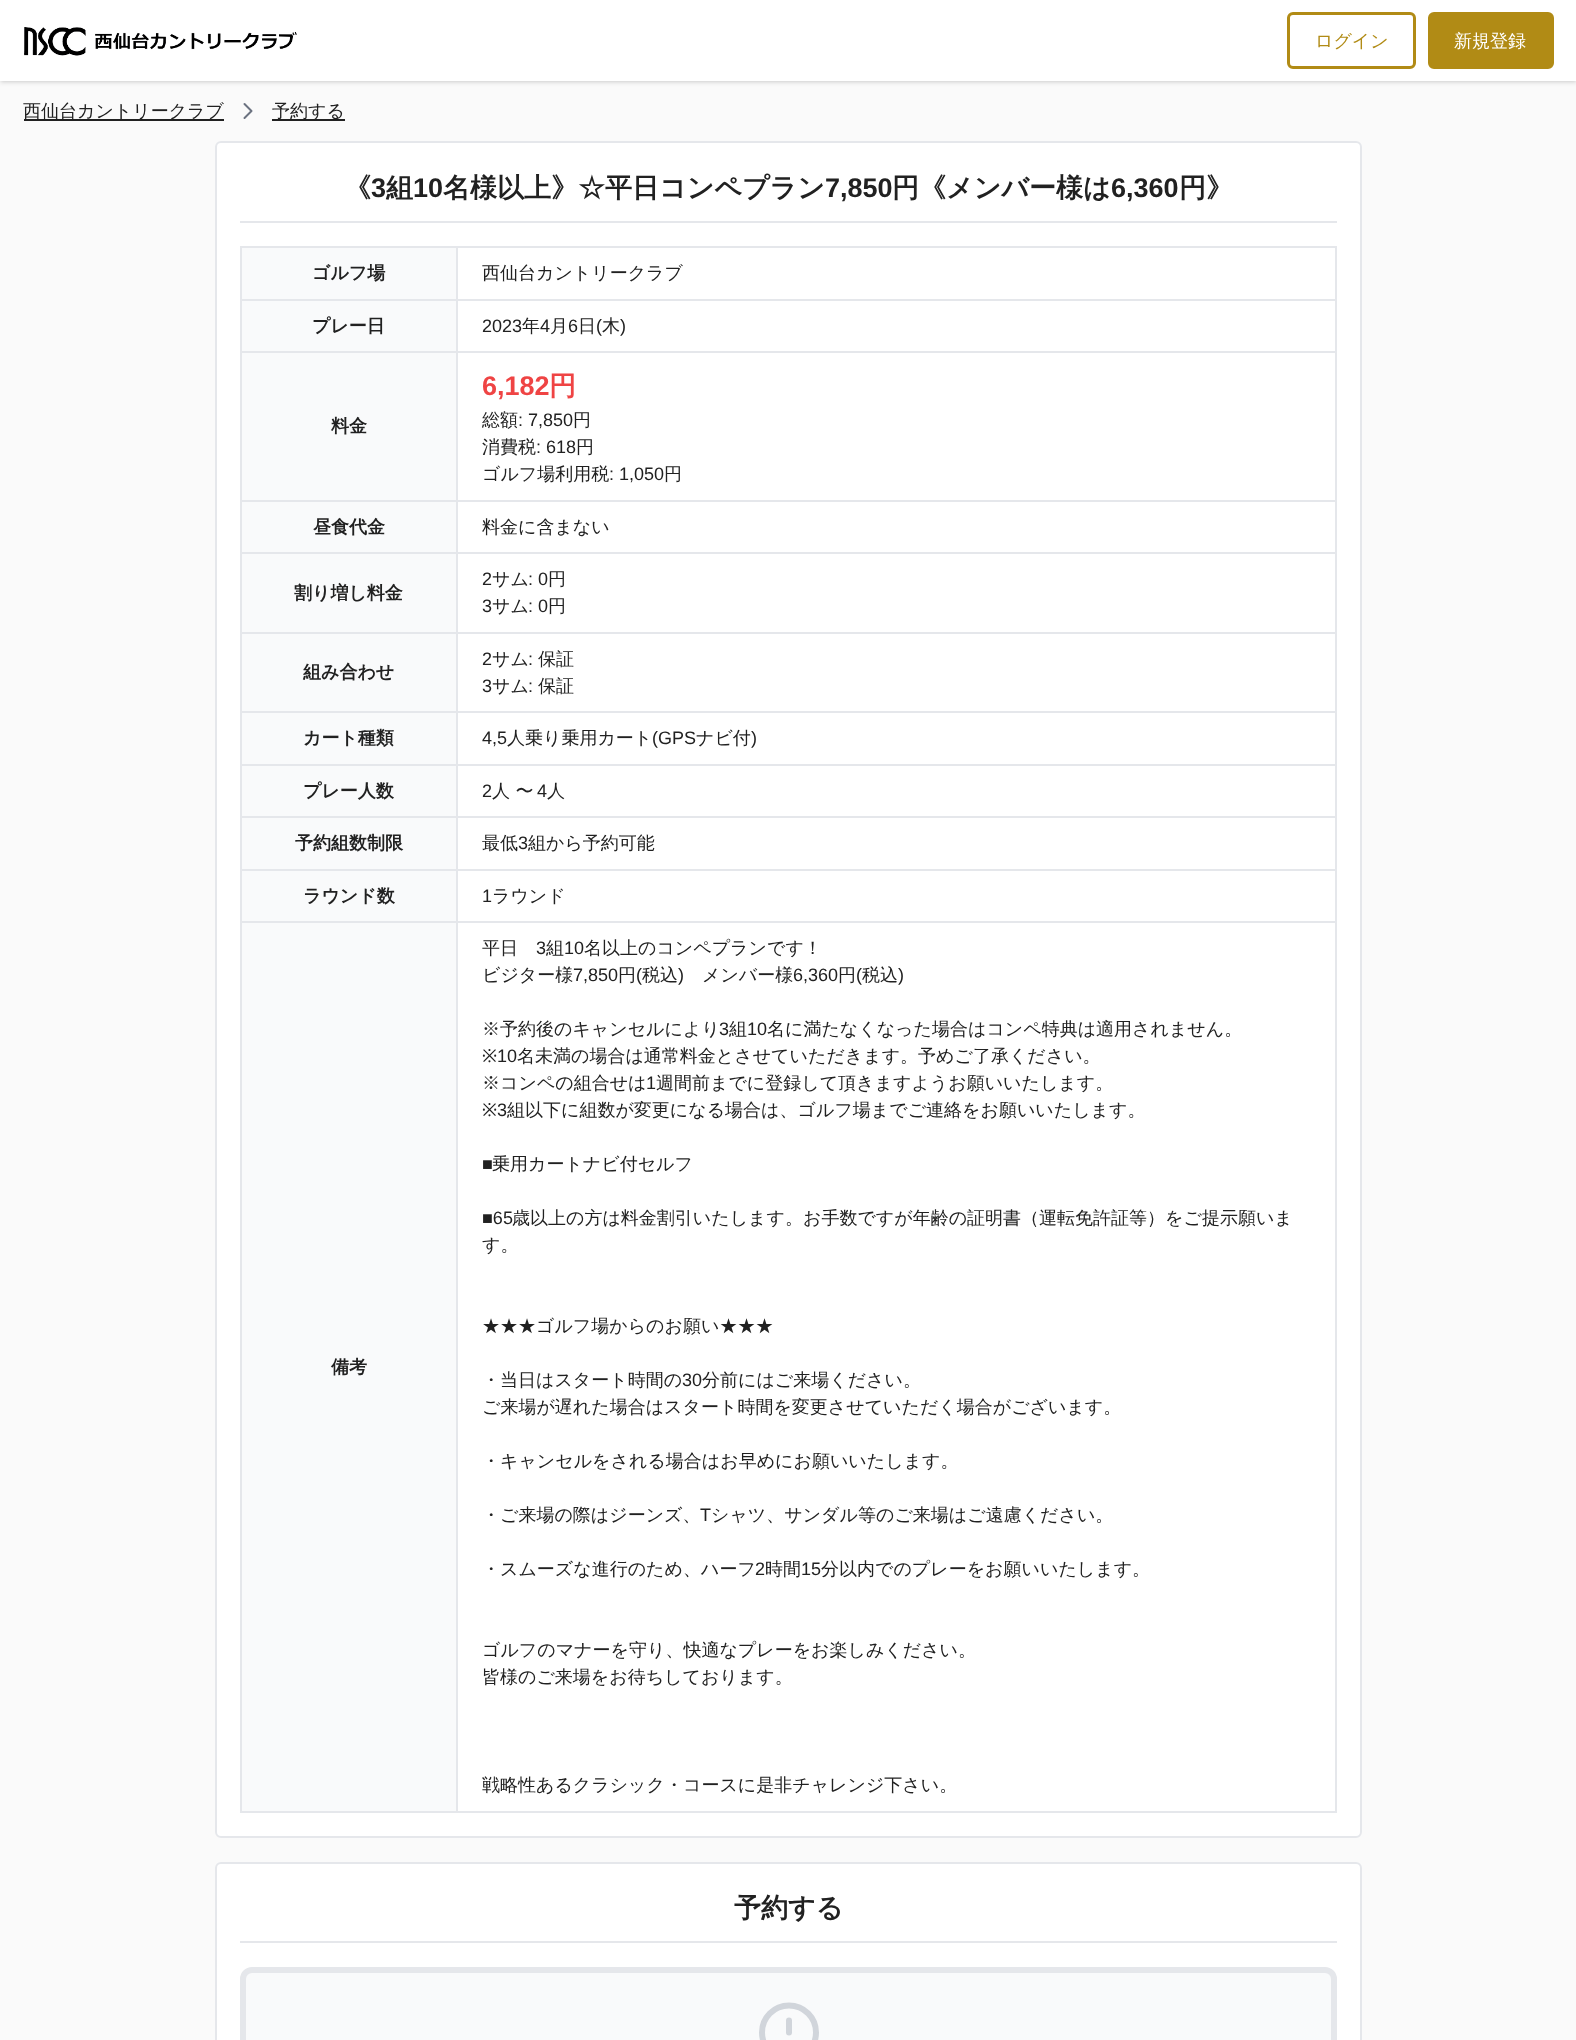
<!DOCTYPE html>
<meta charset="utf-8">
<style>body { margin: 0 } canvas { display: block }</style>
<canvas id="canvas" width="1576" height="2040"></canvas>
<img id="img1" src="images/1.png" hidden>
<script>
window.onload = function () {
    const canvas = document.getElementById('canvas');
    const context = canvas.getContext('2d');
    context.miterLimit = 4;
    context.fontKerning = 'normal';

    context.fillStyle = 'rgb(250, 250, 250)';
    context.fillRect(0, 0, 1576, 2040);
    context.fillStyle = 'rgba(0, 0, 0, 0.1)';
    context.filter = 'blur(1.5px)';
    context.beginPath();
    context.rect(2, 3, 1573, 78);
    context.fill();
    context.filter = 'none';
    context.filter = 'blur(2px)';
    context.beginPath();
    context.rect(0, 2, 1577, 81);
    context.fill();
    context.filter = 'none';
    context.fillStyle = 'rgb(255, 255, 255)';
    context.fillRect(0, 0, 1576, 81);
    context.drawImage(document.getElementById('img1'), 24, 27, 273, 29);
    context.beginPath();
    context.roundRect(1288.5, 13.5, 126, 54, 4.5);
    context.strokeStyle = 'rgb(177, 139, 21)';
    context.lineWidth = 3;
    context.stroke();
    context.fillStyle = 'rgb(177, 139, 21)';
    context.beginPath();
    context.roundRect(1429.5, 13.5, 123, 54, 4.5);
    context.fill();
    context.stroke();
    context.fillStyle = 'rgb(33, 33, 33)';
    context.fillRect(24, 119, 200, 2);
    context.beginPath();
    context.moveTo(244.5, 104);
    context.lineTo(251.5, 111);
    context.lineTo(244.5, 118);
    context.strokeStyle = 'rgb(107, 114, 128)';
    context.lineWidth = 2;
    context.lineCap = 'round';
    context.lineJoin = 'round';
    context.stroke();
    context.fillRect(272, 119, 73, 2);
    context.fillStyle = 'rgb(255, 255, 255)';
    context.beginPath();
    context.roundRect(216, 142, 1145, 1695, 5);
    context.fill();
    context.strokeStyle = 'rgb(229, 231, 235)';
    context.lineJoin = 'miter';
    context.stroke();
    context.fillStyle = 'rgb(229, 231, 235)';
    context.fillRect(240, 221, 1097, 2);
    context.fillStyle = 'rgb(249, 250, 251)';
    context.fillRect(242, 248, 214, 51);
    context.fillStyle = 'rgb(229, 231, 235)';
    context.fillRect(456, 246, 881, 2);
    context.fillRect(456, 299, 881, 2);
    context.fillRect(456, 351, 881, 2);
    context.fillRect(456, 500, 881, 2);
    context.fillRect(456, 552, 881, 2);
    context.fillRect(456, 632, 881, 2);
    context.fillRect(456, 711, 881, 2);
    context.fillRect(456, 764, 881, 2);
    context.fillRect(456, 816, 881, 2);
    context.fillRect(456, 869, 881, 2);
    context.fillRect(456, 921, 881, 2);
    context.fillRect(1335, 921, 2, 891);
    context.fillRect(456, 1811, 881, 2);
    context.fillRect(456, 921, 2, 891);
    context.fillRect(240, 921, 218, 2);
    context.fillRect(456, 869, 2, 54);
    context.fillRect(240, 869, 218, 2);
    context.fillRect(456, 816, 2, 54);
    context.fillRect(240, 816, 218, 2);
    context.fillRect(456, 764, 2, 54);
    context.fillRect(240, 764, 218, 2);
    context.fillRect(456, 711, 2, 54);
    context.fillRect(240, 711, 218, 2);
    context.fillRect(456, 632, 2, 81);
    context.fillRect(240, 632, 218, 2);
    context.fillRect(456, 552, 2, 81);
    context.fillRect(240, 552, 218, 2);
    context.fillRect(456, 500, 2, 54);
    context.fillRect(240, 500, 218, 2);
    context.fillRect(456, 351, 2, 150);
    context.fillRect(240, 351, 218, 2);
    context.fillRect(456, 299, 2, 54);
    context.fillRect(240, 299, 218, 2);
    context.fillRect(456, 246, 2, 54);
    context.fillRect(240, 246, 218, 2);
    context.fillRect(240, 1811, 218, 2);
    context.fillRect(240, 921, 2, 891);
    context.fillRect(240, 869, 2, 54);
    context.fillRect(240, 816, 2, 54);
    context.fillRect(240, 764, 2, 54);
    context.fillRect(240, 711, 2, 54);
    context.fillRect(240, 632, 2, 81);
    context.fillRect(240, 552, 2, 81);
    context.fillRect(240, 500, 2, 54);
    context.fillRect(240, 351, 2, 150);
    context.fillRect(240, 299, 2, 54);
    context.fillRect(240, 246, 2, 54);
    context.fillRect(1335, 869, 2, 54);
    context.fillRect(1335, 816, 2, 54);
    context.fillRect(1335, 764, 2, 54);
    context.fillRect(1335, 711, 2, 54);
    context.fillRect(1335, 632, 2, 81);
    context.fillRect(1335, 552, 2, 81);
    context.fillRect(1335, 500, 2, 54);
    context.fillRect(1335, 351, 2, 150);
    context.fillRect(1335, 299, 2, 54);
    context.fillRect(1335, 246, 2, 54);
    context.fillStyle = 'rgb(249, 250, 251)';
    context.fillRect(242, 301, 214, 50);
    context.fillRect(242, 353, 214, 147);
    context.fillRect(242, 502, 214, 50);
    context.fillRect(242, 554, 214, 78);
    context.fillRect(242, 634, 214, 77);
    context.fillRect(242, 713, 214, 51);
    context.fillRect(242, 766, 214, 50);
    context.fillRect(242, 818, 214, 51);
    context.fillRect(242, 871, 214, 50);
    context.fillRect(242, 923, 214, 888);
    context.fillStyle = 'rgb(255, 255, 255)';
    context.beginPath();
    context.roundRect(216, 1863, 1145, 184, 5);
    context.fill();
    context.stroke();
    context.fillStyle = 'rgb(229, 231, 235)';
    context.fillRect(240, 1941, 1097, 2);
    context.fillStyle = 'rgb(249, 250, 251)';
    context.beginPath();
    context.roundRect(243, 1970, 1091, 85, 9);
    context.fill();
    context.lineWidth = 6;
    context.stroke();
    context.beginPath();
    context.moveTo(789, 2020.5);
    context.lineTo(789, 2032.5);
    context.moveTo(789, 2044.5);
    context.lineTo(789, 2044.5);
    context.moveTo(816, 2032.5);
    context.bezierCurveTo(816, 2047.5, 804, 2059.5, 789, 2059.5);
    context.bezierCurveTo(774, 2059.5, 762, 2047.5, 762, 2032.5);
    context.bezierCurveTo(762, 2017.5, 774, 2005.5, 789, 2005.5);
    context.bezierCurveTo(804, 2005.5, 816, 2017.5, 816, 2032.5);
    context.closePath();
    context.strokeStyle = 'rgb(209, 213, 219)';
    context.lineJoin = 'round';
    context.stroke();
    context.font = '500 18px WenQuanYi Zen Hei';
    context.fillStyle = 'rgb(177, 139, 21)';
    context.fillText('ログイン', 1315, 47);
    context.fillStyle = 'rgb(255, 255, 255)';
    context.fillText('新規登録', 1454, 47);
    context.fillStyle = 'rgb(33, 33, 33)';
    context.fillText('西仙台カントリークラブ', 23, 117);
    context.fillText('予約する', 272, 117);
    context.font = 'bold 27px WenQuanYi Zen Hei';
    context.fillText('《', 344, 197);
    context.font = 'bold 27px Liberation Sans';
    context.fillText('3', 371, 197);
    context.font = 'bold 27px WenQuanYi Zen Hei';
    context.fillText('組', 386, 197);
    context.font = 'bold 27px Liberation Sans';
    context.fillText('10', 413, 197);
    context.font = 'bold 27px WenQuanYi Zen Hei';
    context.fillText('名様以上》☆平日コンペプラン', 443, 197);
    context.font = 'bold 27px Liberation Sans';
    context.fillText('7,850', 825, 197);
    context.font = 'bold 27px WenQuanYi Zen Hei';
    context.fillText('円《メンバー様は', 892, 197);
    context.font = 'bold 27px Liberation Sans';
    context.fillText('6,360', 1111, 197);
    context.font = 'bold 27px WenQuanYi Zen Hei';
    context.fillText('円》', 1179, 197);
    context.font = 'bold 18px WenQuanYi Zen Hei';
    context.fillText('ゴルフ場', 312, 279);
    context.font = '500 18px WenQuanYi Zen Hei';
    context.fillText('西仙台カントリークラブ', 482, 279);
    context.font = 'bold 18px WenQuanYi Zen Hei';
    context.fillText('プレー日', 312, 332);
    context.font = '18px Liberation Sans';
    context.fillText('2023', 482, 332);
    context.font = '500 18px WenQuanYi Zen Hei';
    context.fillText('年', 522, 332);
    context.font = '18px Liberation Sans';
    context.fillText('4', 540, 332);
    context.font = '500 18px WenQuanYi Zen Hei';
    context.fillText('月', 550, 332);
    context.font = '18px Liberation Sans';
    context.fillText('6', 568, 332);
    context.font = '500 18px WenQuanYi Zen Hei';
    context.fillText('日', 578, 332);
    context.font = '18px Liberation Sans';
    context.fillText('(', 596, 332);
    context.font = '500 18px WenQuanYi Zen Hei';
    context.fillText('木', 602, 332);
    context.font = '18px Liberation Sans';
    context.fillText(')', 620, 332);
    context.font = 'bold 18px WenQuanYi Zen Hei';
    context.fillText('料金', 331, 432);
    context.font = 'bold 27px Liberation Sans';
    context.fillStyle = 'rgb(239, 68, 68)';
    context.fillText('6,182', 482, 395);
    context.font = 'bold 27px WenQuanYi Zen Hei';
    context.fillText('円', 549, 395);
    context.font = '500 18px WenQuanYi Zen Hei';
    context.fillStyle = 'rgb(33, 33, 33)';
    context.fillText('総額', 482, 426);
    context.font = '18px Liberation Sans';
    context.fillText(': 7,850', 518, 426);
    context.font = '500 18px WenQuanYi Zen Hei';
    context.fillText('円', 573, 426);
    context.fillText('消費税', 482, 453);
    context.font = '18px Liberation Sans';
    context.fillText(': 618', 536, 453);
    context.font = '500 18px WenQuanYi Zen Hei';
    context.fillText('円', 576, 453);
    context.fillText('ゴルフ場利用税', 482, 480);
    context.font = '18px Liberation Sans';
    context.fillText(': 1,050', 609, 480);
    context.font = '500 18px WenQuanYi Zen Hei';
    context.fillText('円', 664, 480);
    context.font = 'bold 18px WenQuanYi Zen Hei';
    context.fillText('昼食代金', 313, 533);
    context.font = '500 18px WenQuanYi Zen Hei';
    context.fillText('料金に含まない', 482, 533);
    context.font = 'bold 18px WenQuanYi Zen Hei';
    context.fillText('割り増し料金', 294, 599);
    context.font = '18px Liberation Sans';
    context.fillText('2', 482, 585);
    context.font = '500 18px WenQuanYi Zen Hei';
    context.fillText('サム', 492, 585);
    context.font = '18px Liberation Sans';
    context.fillText(': 0', 528, 585);
    context.font = '500 18px WenQuanYi Zen Hei';
    context.fillText('円', 548, 585);
    context.font = '18px Liberation Sans';
    context.fillText('3', 482, 612);
    context.font = '500 18px WenQuanYi Zen Hei';
    context.fillText('サム', 492, 612);
    context.font = '18px Liberation Sans';
    context.fillText(': 0', 528, 612);
    context.font = '500 18px WenQuanYi Zen Hei';
    context.fillText('円', 548, 612);
    context.font = 'bold 18px WenQuanYi Zen Hei';
    context.fillText('組み合わせ', 303, 678);
    context.font = '18px Liberation Sans';
    context.fillText('2', 482, 665);
    context.font = '500 18px WenQuanYi Zen Hei';
    context.fillText('サム', 492, 665);
    context.font = '18px Liberation Sans';
    context.fillText(':', 528, 665);
    context.font = '500 18px WenQuanYi Zen Hei';
    context.fillText('保証', 538, 665);
    context.font = '18px Liberation Sans';
    context.fillText('3', 482, 692);
    context.font = '500 18px WenQuanYi Zen Hei';
    context.fillText('サム', 492, 692);
    context.font = '18px Liberation Sans';
    context.fillText(':', 528, 692);
    context.font = '500 18px WenQuanYi Zen Hei';
    context.fillText('保証', 538, 692);
    context.font = 'bold 18px WenQuanYi Zen Hei';
    context.fillText('カート種類', 303, 744);
    context.font = '18px Liberation Sans';
    context.fillText('4,5', 482, 744);
    context.font = '500 18px WenQuanYi Zen Hei';
    context.fillText('人乗り乗用カート', 507, 744);
    context.font = '18px Liberation Sans';
    context.fillText('(GPS', 652, 744);
    context.font = '500 18px WenQuanYi Zen Hei';
    context.fillText('ナビ付', 696, 744);
    context.font = '18px Liberation Sans';
    context.fillText(')', 751, 744);
    context.font = 'bold 18px WenQuanYi Zen Hei';
    context.fillText('プレー人数', 303, 797);
    context.font = '18px Liberation Sans';
    context.fillText('2', 482, 797);
    context.font = '500 18px WenQuanYi Zen Hei';
    context.fillText('人 〜', 492, 797);
    context.font = '18px Liberation Sans';
    context.fillText('4', 537, 797);
    context.font = '500 18px WenQuanYi Zen Hei';
    context.fillText('人', 547, 797);
    context.font = 'bold 18px WenQuanYi Zen Hei';
    context.fillText('予約組数制限', 295, 849);
    context.font = '500 18px WenQuanYi Zen Hei';
    context.fillText('最低', 482, 849);
    context.font = '18px Liberation Sans';
    context.fillText('3', 518, 849);
    context.font = '500 18px WenQuanYi Zen Hei';
    context.fillText('組から予約可能', 528, 849);
    context.font = 'bold 18px WenQuanYi Zen Hei';
    context.fillText('ラウンド数', 303, 902);
    context.font = '18px Liberation Sans';
    context.fillText('1', 482, 902);
    context.font = '500 18px WenQuanYi Zen Hei';
    context.fillText('ラウンド', 492, 902);
    context.font = 'bold 18px WenQuanYi Zen Hei';
    context.fillText('備考', 331, 1373);
    context.font = '500 18px WenQuanYi Zen Hei';
    context.fillText('平日', 482, 954);
    context.font = '18px Liberation Sans';
    context.fillText('3', 536, 954);
    context.font = '500 18px WenQuanYi Zen Hei';
    context.fillText('組', 546, 954);
    context.font = '18px Liberation Sans';
    context.fillText('10', 564, 954);
    context.font = '500 18px WenQuanYi Zen Hei';
    context.fillText('名以上のコンペプランです！', 584, 954);
    context.fillText('ビジター様', 482, 981);
    context.font = '18px Liberation Sans';
    context.fillText('7,850', 573, 981);
    context.font = '500 18px WenQuanYi Zen Hei';
    context.fillText('円', 618, 981);
    context.font = '18px Liberation Sans';
    context.fillText('(', 636, 981);
    context.font = '500 18px WenQuanYi Zen Hei';
    context.fillText('税込', 642, 981);
    context.font = '18px Liberation Sans';
    context.fillText(')', 678, 981);
    context.font = '500 18px WenQuanYi Zen Hei';
    context.fillText('メンバー様', 702, 981);
    context.font = '18px Liberation Sans';
    context.fillText('6,360', 793, 981);
    context.font = '500 18px WenQuanYi Zen Hei';
    context.fillText('円', 838, 981);
    context.font = '18px Liberation Sans';
    context.fillText('(', 856, 981);
    context.font = '500 18px WenQuanYi Zen Hei';
    context.fillText('税込', 862, 981);
    context.font = '18px Liberation Sans';
    context.fillText(')', 898, 981);
    context.font = '500 18px WenQuanYi Zen Hei';
    context.fillText('※予約後のキャンセルにより', 482, 1035);
    context.font = '18px Liberation Sans';
    context.fillText('3', 719, 1035);
    context.font = '500 18px WenQuanYi Zen Hei';
    context.fillText('組', 729, 1035);
    context.font = '18px Liberation Sans';
    context.fillText('10', 747, 1035);
    context.font = '500 18px WenQuanYi Zen Hei';
    context.fillText('名に満たなくなった場合はコンペ特典は適用されません。', 767, 1035);
    context.font = '18px Noto Sans';
    context.fillText('※', 482, 1062);
    context.font = '18px Liberation Sans';
    context.fillText('10', 497, 1062);
    context.font = '500 18px WenQuanYi Zen Hei';
    context.fillText('名未満の場合は通常料金とさせていただきます。予めご了承ください。', 517, 1062);
    context.fillText('※コンペの組合せは', 482, 1089);
    context.font = '18px Liberation Sans';
    context.fillText('1', 646, 1089);
    context.font = '500 18px WenQuanYi Zen Hei';
    context.fillText('週間前までに登録して頂きますようお願いいたします。', 656, 1089);
    context.font = '18px Noto Sans';
    context.fillText('※', 482, 1116);
    context.font = '18px Liberation Sans';
    context.fillText('3', 497, 1116);
    context.font = '500 18px WenQuanYi Zen Hei';
    context.fillText('組以下に組数が変更になる場合は、ゴルフ場までご連絡をお願いいたします。', 507, 1116);
    context.font = '18px Liberation Sans';
    context.fillText('■', 482, 1170);
    context.font = '500 18px WenQuanYi Zen Hei';
    context.fillText('乗用カートナビ付セルフ', 492, 1170);
    context.font = '18px Liberation Sans';
    context.fillText('■65', 482, 1224);
    context.font = '500 18px WenQuanYi Zen Hei';
    context.fillText('歳以上の方は料金割引いたします。お手数ですが年齢の証明書（運転免許証等）をご提示願いま', 512, 1224);
    context.fillText('す。', 482, 1251);
    context.fillText('★★★ゴルフ場からのお願い★★★', 482, 1332);
    context.fillText('・当日はスタート時間の', 482, 1386);
    context.font = '18px Liberation Sans';
    context.fillText('30', 682, 1386);
    context.font = '500 18px WenQuanYi Zen Hei';
    context.fillText('分前にはご来場ください。', 702, 1386);
    context.fillText('ご来場が遅れた場合はスタート時間を変更させていただく場合がございます。', 482, 1413);
    context.fillText('・キャンセルをされる場合はお早めにお願いいたします。', 482, 1467);
    context.fillText('・ご来場の際はジーンズ、', 482, 1521);
    context.font = '18px Liberation Sans';
    context.fillText('T', 700, 1521);
    context.font = '500 18px WenQuanYi Zen Hei';
    context.fillText('シャツ、サンダル等のご来場はご遠慮ください。', 711, 1521);
    context.fillText('・スムーズな進行のため、ハーフ', 482, 1575);
    context.font = '18px Liberation Sans';
    context.fillText('2', 755, 1575);
    context.font = '500 18px WenQuanYi Zen Hei';
    context.fillText('時間', 765, 1575);
    context.font = '18px Liberation Sans';
    context.fillText('15', 801, 1575);
    context.font = '500 18px WenQuanYi Zen Hei';
    context.fillText('分以内でのプレーをお願いいたします。', 821, 1575);
    context.fillText('ゴルフのマナーを守り、快適なプレーをお楽しみください。', 482, 1656);
    context.fillText('皆様のご来場をお待ちしております。', 482, 1683);
    context.fillText('戦略性あるクラシック・コースに是非チャレンジ下さい。', 482, 1791);
    context.font = 'bold 27px WenQuanYi Zen Hei';
    context.fillText('予約する', 734, 1917);
};
</script>
